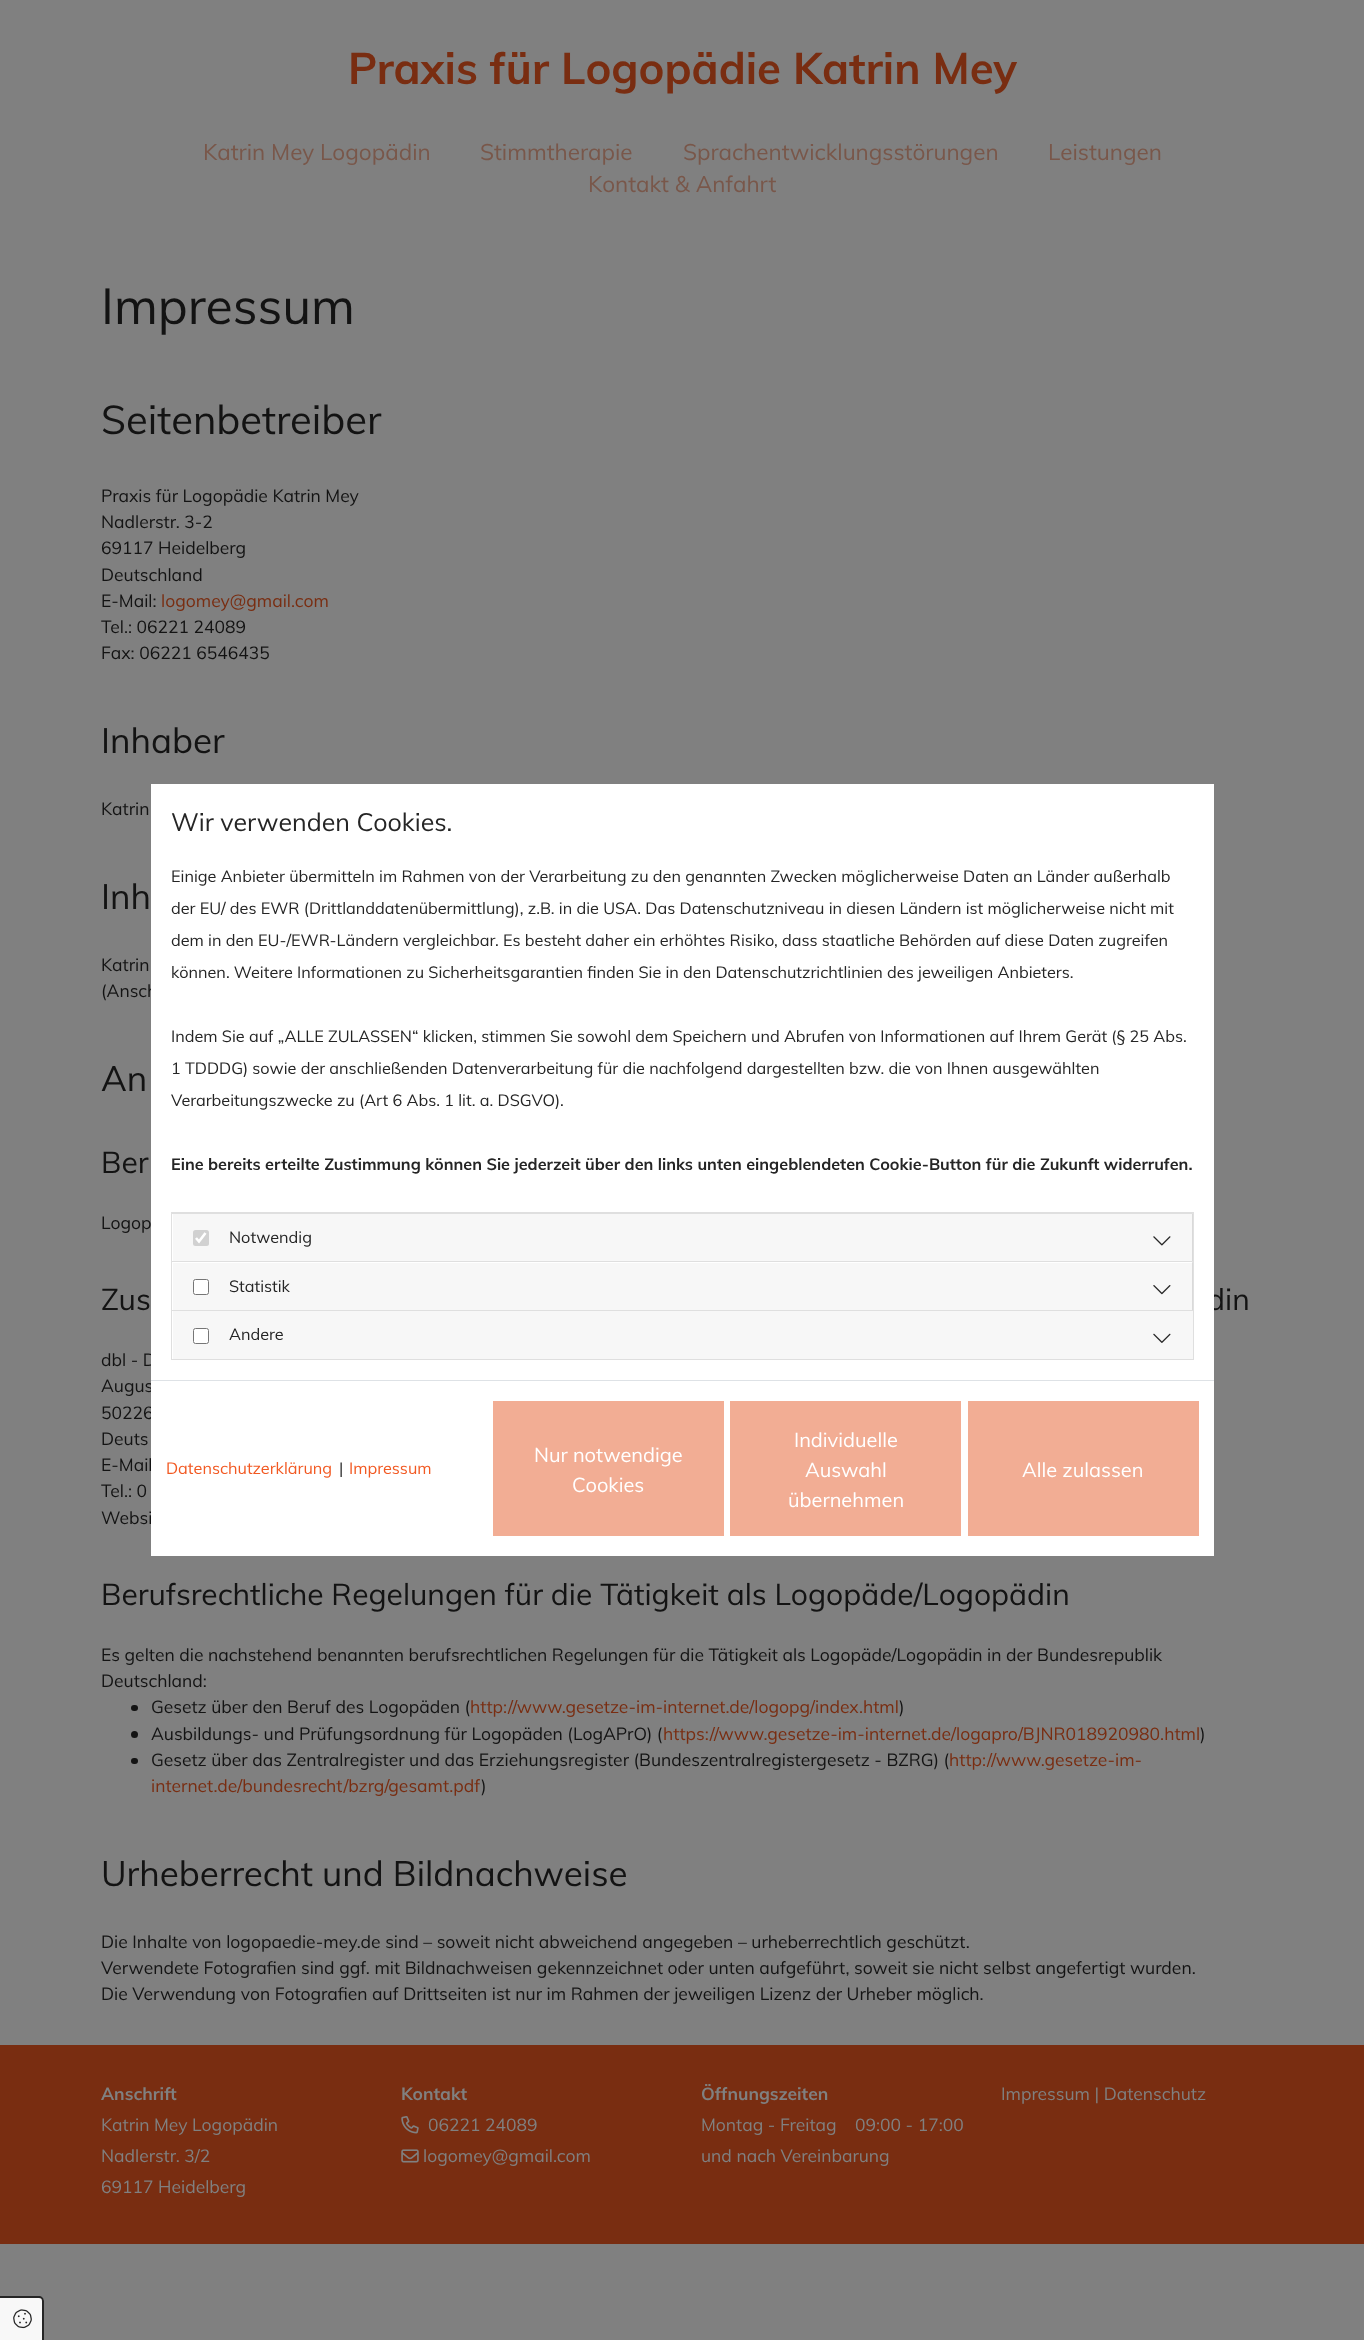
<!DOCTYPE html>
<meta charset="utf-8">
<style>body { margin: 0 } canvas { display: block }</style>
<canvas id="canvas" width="1364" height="2340"></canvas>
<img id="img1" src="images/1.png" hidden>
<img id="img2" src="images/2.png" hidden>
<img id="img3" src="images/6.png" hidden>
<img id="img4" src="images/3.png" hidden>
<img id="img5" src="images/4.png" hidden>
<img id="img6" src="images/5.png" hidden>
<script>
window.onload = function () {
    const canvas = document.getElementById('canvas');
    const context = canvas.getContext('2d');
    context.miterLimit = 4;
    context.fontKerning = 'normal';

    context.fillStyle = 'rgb(128, 128, 128)';
    context.fillRect(0, 0, 1364, 2340);
    context.fillStyle = 'rgb(19, 19, 19)';
    context.beginPath();
    context.roundRect(131, 1705, 7, 6, 3);
    context.fill();
    context.beginPath();
    context.arc(134.5, 1734.5, 3.5, 0, 2 * Math.PI);
    context.fill();
    context.beginPath();
    context.roundRect(131, 1758, 7, 6, 3);
    context.fill();
    context.fillStyle = 'rgb(121, 45, 17)';
    context.fillRect(0, 2045, 1364, 199);
    context.drawImage(document.getElementById('img1'), 401, 2115, 18, 19);
    context.drawImage(document.getElementById('img2'), 401, 2149, 18, 14);
    context.fillStyle = 'rgb(248, 248, 248)';
    context.beginPath();
    context.roundRect(0, 2296, 44, 44, [0, 5, 0, 0]);
    context.fill();
    context.fillStyle = 'rgb(37, 37, 37)';
    context.beginPath();
    context.moveTo(0, 2296);
    context.lineTo(39, 2296);
    context.bezierCurveTo(42, 2296, 44, 2298, 44, 2301);
    context.lineTo(44, 2340);
    context.lineTo(0, 2340);
    context.closePath();
    context.moveTo(0, 2298);
    context.lineTo(39, 2298);
    context.bezierCurveTo(41, 2298, 42, 2299, 42, 2301);
    context.lineTo(42, 2340);
    context.lineTo(0, 2340);
    context.closePath();
    context.fill('evenodd');
    context.drawImage(document.getElementById('img3'), 13, 2309, 19, 20);
    context.font = 'bold 43.75px Muli';
    context.fillStyle = 'rgb(121, 45, 17)';
    context.fillText('Praxis für Logopädie Katrin Mey', 348, 84);
    context.font = '22.5px Muli';
    context.fillStyle = 'rgb(121, 87, 74)';
    context.fillText('Katrin Mey Logopädin', 203, 160);
    context.fillText('Stimmtherapie', 480, 160);
    context.fillText('Sprachentwicklungsstörungen', 683, 160);
    context.fillText('Leistungen', 1048, 160);
    context.fillText('Kontakt & Anfahrt', 588, 192);
    context.font = '50px Muli';
    context.fillStyle = 'rgb(19, 19, 19)';
    context.fillText('Impressum', 101, 324);
    context.font = '40px Muli';
    context.fillText('Seitenbetreiber', 101, 434);
    context.font = '17.5px Muli';
    context.fillText('Praxis für Logopädie Katrin Mey', 101, 502);
    context.fillText('Nadlerstr. 3-2', 101, 528);
    context.fillText('69117 Heidelberg', 101, 554);
    context.fillText('Deutschland', 101, 581);
    context.fillText('E-Mail:', 101, 607);
    context.fillStyle = 'rgb(121, 45, 17)';
    context.fillText('logomey@gmail.com', 161, 607);
    context.fillStyle = 'rgb(19, 19, 19)';
    context.fillText('Tel.: 06221 24089', 101, 633);
    context.fillText('Fax: 06221 6546435', 101, 659);
    context.font = '35px Muli';
    context.fillText('Inhaber', 101, 753);
    context.font = '17.5px Muli';
    context.fillText('Katrin', 101, 815);
    context.font = '35px Muli';
    context.fillText('Inh', 101, 909);
    context.font = '17.5px Muli';
    context.fillText('Katrin', 101, 971);
    context.fillText('(Ansch', 101, 997);
    context.font = '35px Muli';
    context.fillText('An', 101, 1091);
    context.font = '30px Muli';
    context.fillText('Ber', 101, 1173);
    context.font = '17.5px Muli';
    context.fillText('Logop', 101, 1229);
    context.font = '30px Muli';
    context.fillText('Zus', 101, 1310);
    context.fillText('din', 1207, 1310);
    context.font = '17.5px Muli';
    context.fillText('dbl - D', 101, 1366);
    context.fillText('Augus', 101, 1392);
    context.fillText('50226', 101, 1419);
    context.fillText('Deuts', 101, 1445);
    context.fillText('E-Mail', 101, 1471);
    context.fillText('Tel.: 0', 101, 1497);
    context.fillText('Websi', 101, 1524);
    context.font = '30px Muli';
    context.fillText('Berufsrechtliche Regelungen für die Tätigkeit als Logopäde/Logopädin', 101, 1605);
    context.font = '17.5px Muli';
    context.fillText('Es gelten die nachstehend benannten berufsrechtlichen Regelungen für die Tätigkeit als Logopäde/Logopädin in der Bundesrepublik', 101, 1661);
    context.fillText('Deutschland:', 101, 1687);
    context.fillText('Gesetz über den Beruf des Logopäden (', 151, 1713);
    context.fillStyle = 'rgb(121, 45, 17)';
    context.fillText('http://www.gesetze-im-internet.de/logopg/index.html', 470, 1713);
    context.fillStyle = 'rgb(19, 19, 19)';
    context.fillText(')', 899, 1713);
    context.fillText('Ausbildungs- und Prüfungsordnung für Logopäden (LogAPrO) (', 151, 1740);
    context.fillStyle = 'rgb(121, 45, 17)';
    context.fillText('https://www.gesetze-im-internet.de/logapro/BJNR018920980.html', 663, 1740);
    context.fillStyle = 'rgb(19, 19, 19)';
    context.fillText(')', 1200, 1740);
    context.fillText('Gesetz über das Zentralregister und das Erziehungsregister (Bundeszentralregistergesetz - BZRG) (', 151, 1766);
    context.fillStyle = 'rgb(121, 45, 17)';
    context.fillText('http://www.gesetze-im-', 949, 1766);
    context.fillText('internet.de/bundesrecht/bzrg/gesamt.pdf', 151, 1792);
    context.fillStyle = 'rgb(19, 19, 19)';
    context.fillText(')', 481, 1792);
    context.font = '35px Muli';
    context.fillText('Urheberrecht und Bildnachweise', 101, 1886);
    context.font = '17.5px Muli';
    context.fillText('Die Inhalte von logopaedie-mey.de sind – soweit nicht abweichend angegeben – urheberrechtlich geschützt.', 101, 1948);
    context.fillText('Verwendete Fotografien sind ggf. mit Bildnachweisen gekennzeichnet oder unten aufgeführt, soweit sie nicht selbst angefertigt wurden.', 101, 1974);
    context.fillText('Die Verwendung von Fotografien auf Drittseiten ist nur im Rahmen der jeweiligen Lizenz der Urheber möglich.', 101, 2000);
    context.font = 'bold 17.5px Muli';
    context.fillStyle = 'rgb(128, 128, 128)';
    context.fillText('Anschrift', 101, 2100);
    context.font = '17.5px Muli';
    context.fillText('Katrin Mey Logopädin', 101, 2131);
    context.fillText('Nadlerstr. 3/2', 101, 2162);
    context.fillText('69117 Heidelberg', 101, 2193);
    context.font = 'bold 17.5px Muli';
    context.fillText('Kontakt', 401, 2100);
    context.font = '17.5px Muli';
    context.fillText('06221 24089', 428, 2131);
    context.fillText('logomey@gmail.com', 423, 2162);
    context.font = 'bold 17.5px Muli';
    context.fillText('Öffnungszeiten', 701, 2100);
    context.font = '17.5px Muli';
    context.fillText('Montag - Freitag', 701, 2131);
    context.fillText('09:00 - 17:00', 855, 2131);
    context.fillText('und nach Vereinbarung', 701, 2162);
    context.fillText('Impressum | Datenschutz', 1001, 2100);
    context.fillStyle = 'rgb(255, 255, 255)';
    context.fillRect(151, 784, 1063, 772);
    context.font = '25px Muli';
    context.fillStyle = 'rgb(37, 37, 37)';
    context.fillText('Wir verwenden Cookies.', 171, 831);
    context.font = '16.25px Muli';
    context.fillText('Einige Anbieter übermitteln im Rahmen von der Verarbeitung zu den genannten Zwecken möglicherweise Daten an Länder außerhalb', 171, 882);
    context.fillText('der EU/ des EWR (Drittlanddatenübermittlung), z.B. in die USA. Das Datenschutzniveau in diesen Ländern ist möglicherweise nicht mit', 171, 914);
    context.fillText('dem in den EU-/EWR-Ländern vergleichbar. Es besteht daher ein erhöhtes Risiko, dass staatliche Behörden auf diese Daten zugreifen', 171, 946);
    context.fillText('können. Weitere Informationen zu Sicherheitsgarantien finden Sie in den Datenschutzrichtlinien des jeweiligen Anbieters.', 171, 978);
    context.fillText('Indem Sie auf „ALLE ZULASSEN“ klicken, stimmen Sie sowohl dem Speichern und Abrufen von Informationen auf Ihrem Gerät (§ 25 Abs.', 171, 1042);
    context.fillText('1 TDDDG) sowie der anschließenden Datenverarbeitung für die nachfolgend dargestellten bzw. die von Ihnen ausgewählten', 171, 1074);
    context.fillText('Verarbeitungszwecke zu (Art 6 Abs. 1 lit. a. DSGVO).', 171, 1106);
    context.font = 'bold 16.25px Muli';
    context.fillText('Eine bereits erteilte Zustimmung können Sie jederzeit über den links unten eingeblendeten Cookie-Button für die Zukunft widerrufen.', 171, 1170);
    context.fillStyle = 'rgb(223, 223, 223)';
    context.beginPath();
    context.moveTo(171, 1212);
    context.lineTo(1194, 1212);
    context.lineTo(1192, 1214);
    context.lineTo(172, 1214);
    context.closePath();
    context.fill();
    context.fillStyle = 'rgba(0, 0, 0, 0.12)';
    context.beginPath();
    context.moveTo(1194, 1212);
    context.lineTo(1194, 1261);
    context.lineTo(1192, 1261);
    context.lineTo(1192, 1214);
    context.closePath();
    context.fill();
    context.beginPath();
    context.moveTo(171, 1261);
    context.lineTo(171, 1212);
    context.lineTo(172, 1214);
    context.lineTo(172, 1261);
    context.closePath();
    context.fill();
    context.fillStyle = 'rgba(0, 0, 0, 0.03)';
    context.fillRect(173, 1214, 1020, 47);
    context.fillStyle = 'rgb(209, 209, 209)';
    context.beginPath();
    context.roundRect(193, 1230, 16, 16, 2.5);
    context.fill();
    context.beginPath();
    context.moveTo(196, 1238);
    context.lineTo(199, 1241.5);
    context.lineTo(205.5, 1233);
    context.strokeStyle = 'rgb(255, 255, 255)';
    context.lineWidth = 2.6;
    context.stroke();
    context.font = '16.25px Muli';
    context.fillStyle = 'rgb(37, 37, 37)';
    context.fillText('Notwendig', 229, 1243);
    context.drawImage(document.getElementById('img4'), 1153, 1236, 18, 10);
    context.fillStyle = 'rgb(223, 223, 223)';
    context.beginPath();
    context.moveTo(171, 1261);
    context.lineTo(1194, 1261);
    context.lineTo(1192, 1262);
    context.lineTo(172, 1262);
    context.closePath();
    context.fill();
    context.fillStyle = 'rgba(0, 0, 0, 0.12)';
    context.beginPath();
    context.moveTo(1194, 1261);
    context.lineTo(1194, 1310);
    context.lineTo(1192, 1310);
    context.lineTo(1192, 1262);
    context.closePath();
    context.fill();
    context.beginPath();
    context.moveTo(171, 1310);
    context.lineTo(171, 1261);
    context.lineTo(172, 1262);
    context.lineTo(172, 1310);
    context.closePath();
    context.fill();
    context.fillStyle = 'rgba(0, 0, 0, 0.03)';
    context.fillRect(173, 1263, 1020, 47);
    context.fillStyle = 'rgb(255, 255, 255)';
    context.beginPath();
    context.roundRect(193.5, 1279.5, 15, 15, 2);
    context.fill();
    context.strokeStyle = 'rgb(118, 118, 118)';
    context.lineWidth = 1;
    context.stroke();
    context.fillStyle = 'rgb(37, 37, 37)';
    context.fillText('Statistik', 229, 1292);
    context.drawImage(document.getElementById('img5'), 1153, 1285, 18, 10);
    context.strokeStyle = 'rgb(223, 223, 223)';
    context.strokeRect(171.5, 1310.5, 1022, 49);
    context.fillStyle = 'rgb(247, 247, 247)';
    context.fillRect(173, 1311, 1020, 48);
    context.fillStyle = 'rgb(255, 255, 255)';
    context.beginPath();
    context.roundRect(193.5, 1328.5, 15, 15, 2);
    context.fill();
    context.strokeStyle = 'rgb(118, 118, 118)';
    context.stroke();
    context.fillStyle = 'rgb(37, 37, 37)';
    context.fillText('Andere', 229, 1340);
    context.drawImage(document.getElementById('img6'), 1153, 1333, 18, 10);
    context.fillStyle = 'rgb(222, 226, 230)';
    context.fillRect(151, 1380, 1063, 1);
    context.fillStyle = 'rgb(242, 89, 34)';
    context.fillText('Datenschutzerklärung', 166, 1474);
    context.fillStyle = 'rgb(37, 37, 37)';
    context.fillText('|', 339, 1474);
    context.fillStyle = 'rgb(242, 89, 34)';
    context.fillText('Impressum', 349, 1474);
    context.fillStyle = 'rgb(242, 173, 148)';
    context.fillRect(493, 1401, 231, 135);
    context.font = '20px Muli';
    context.fillStyle = 'rgb(255, 255, 255)';
    context.fillText('Nur notwendige', 534, 1462);
    context.fillText('Cookies', 572, 1492);
    context.fillStyle = 'rgb(242, 173, 148)';
    context.fillRect(730, 1401, 231, 135);
    context.fillStyle = 'rgb(255, 255, 255)';
    context.fillText('Individuelle', 794, 1447);
    context.fillText('Auswahl', 805, 1477);
    context.fillText('übernehmen', 788, 1507);
    context.fillStyle = 'rgb(242, 173, 148)';
    context.fillRect(968, 1401, 231, 135);
    context.fillStyle = 'rgb(255, 255, 255)';
    context.fillText('Alle zulassen', 1022, 1477);
};
</script>
